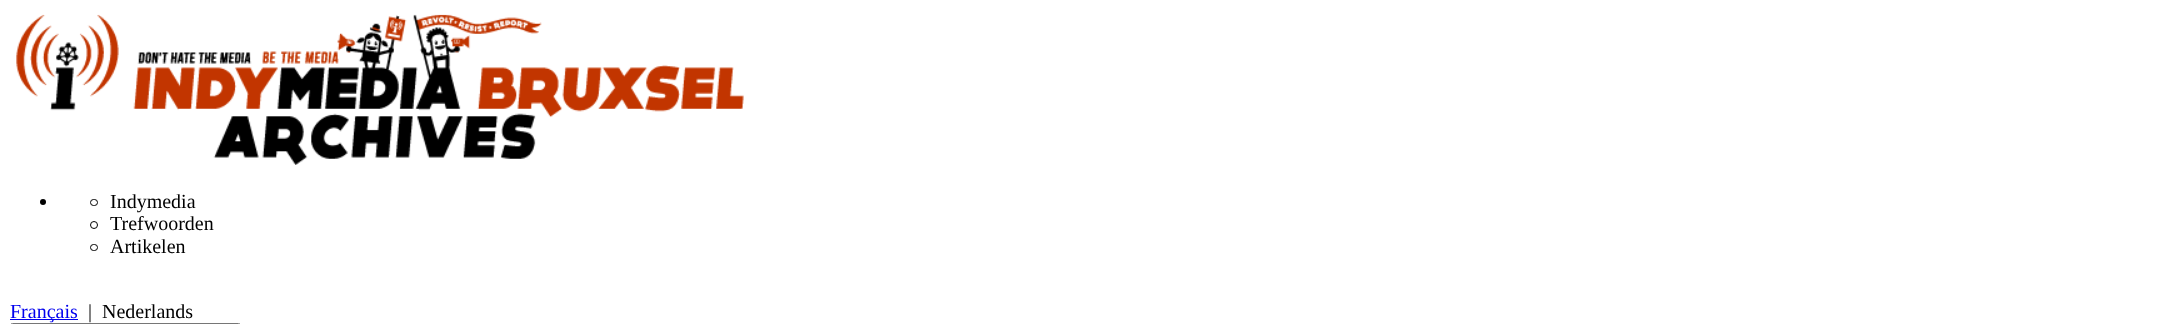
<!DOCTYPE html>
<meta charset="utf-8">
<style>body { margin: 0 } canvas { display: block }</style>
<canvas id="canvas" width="2165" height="324"></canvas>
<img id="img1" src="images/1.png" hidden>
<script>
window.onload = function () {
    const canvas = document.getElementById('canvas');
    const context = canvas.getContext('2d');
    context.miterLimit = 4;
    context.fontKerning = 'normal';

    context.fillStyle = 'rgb(255, 255, 255)';
    context.fillRect(0, 0, 2165, 324);
    context.drawImage(document.getElementById('img1'), 16, 14, 728, 151);
    context.fillStyle = 'rgb(0, 0, 0)';
    context.beginPath();
    context.arc(43, 202, 3, 0, 2 * Math.PI);
    context.fill();
    context.beginPath();
    context.roundRect(90.5, 199.5, 7, 6, 3);
    context.strokeStyle = 'rgb(0, 0, 0)';
    context.stroke();
    context.beginPath();
    context.arc(94, 225, 3.5, 0, 2 * Math.PI);
    context.stroke();
    context.beginPath();
    context.roundRect(90.5, 244.5, 7, 6, 3);
    context.stroke();
    context.fillStyle = 'rgb(0, 0, 238)';
    context.fillRect(10, 319, 68, 1);
    context.beginPath();
    context.roundRect(10.5, 323.5, 230, 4, 2);
    context.strokeStyle = 'rgb(118, 118, 118)';
    context.stroke();
    context.font = '20px Liberation Serif';
    context.fillStyle = 'rgb(0, 0, 0)';
    context.fillText('Indymedia', 110, 208);
    context.fillText('Trefwoorden', 110, 230);
    context.fillText('Artikelen', 110, 253);
    context.fillStyle = 'rgb(0, 0, 238)';
    context.fillText('Français', 10, 318);
    context.fillStyle = 'rgb(0, 0, 0)';
    context.fillText('|', 88, 318);
    context.fillText('Nederlands', 102, 318);
};
</script>
